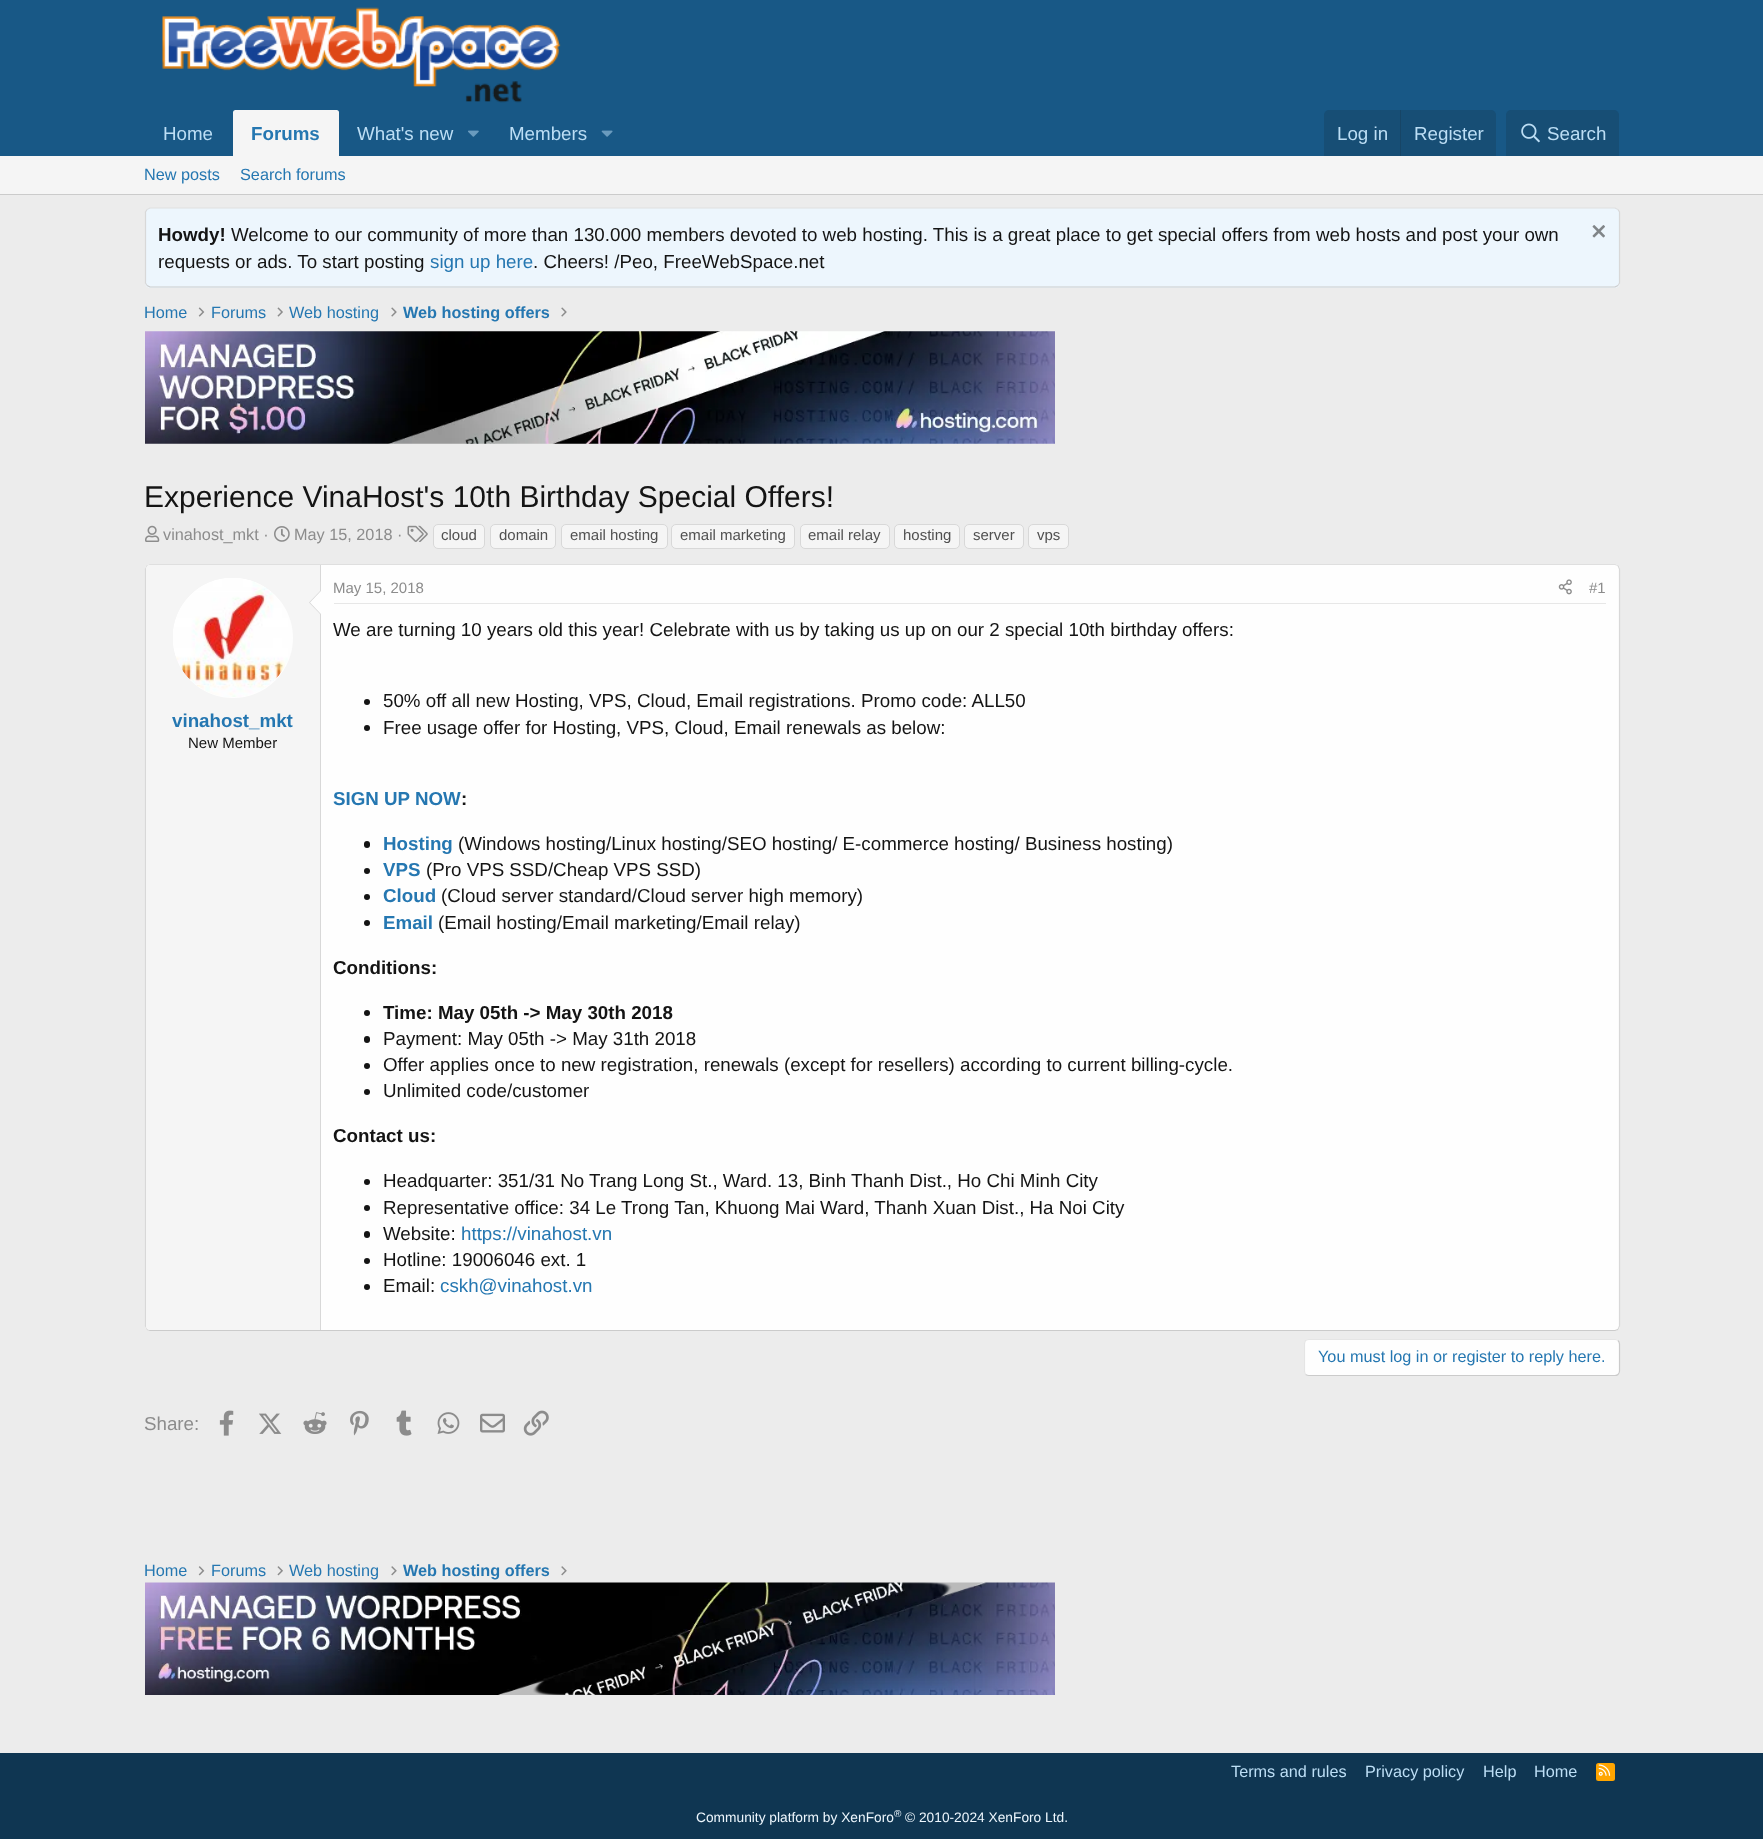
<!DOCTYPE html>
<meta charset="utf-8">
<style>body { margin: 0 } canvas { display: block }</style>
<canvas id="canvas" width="1763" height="1839"></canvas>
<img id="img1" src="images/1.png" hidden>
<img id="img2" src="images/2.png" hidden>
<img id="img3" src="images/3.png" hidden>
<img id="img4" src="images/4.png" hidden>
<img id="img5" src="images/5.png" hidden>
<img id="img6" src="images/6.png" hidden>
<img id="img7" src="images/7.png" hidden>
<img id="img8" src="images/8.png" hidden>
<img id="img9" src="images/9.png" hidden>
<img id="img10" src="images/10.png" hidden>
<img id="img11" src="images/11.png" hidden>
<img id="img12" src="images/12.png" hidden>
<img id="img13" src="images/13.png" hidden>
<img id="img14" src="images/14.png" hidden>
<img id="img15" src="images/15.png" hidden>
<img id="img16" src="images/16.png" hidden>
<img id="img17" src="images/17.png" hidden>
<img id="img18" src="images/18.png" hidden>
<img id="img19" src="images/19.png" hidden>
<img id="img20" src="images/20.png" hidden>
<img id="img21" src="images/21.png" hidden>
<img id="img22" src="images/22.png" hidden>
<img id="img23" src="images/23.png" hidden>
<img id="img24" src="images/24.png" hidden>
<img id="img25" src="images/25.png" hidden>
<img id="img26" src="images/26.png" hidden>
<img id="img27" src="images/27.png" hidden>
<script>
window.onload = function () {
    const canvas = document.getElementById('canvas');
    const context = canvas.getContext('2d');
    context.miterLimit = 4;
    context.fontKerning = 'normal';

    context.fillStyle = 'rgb(236, 236, 236)';
    context.fillRect(0, 0, 1763, 1839);
    context.fillStyle = 'rgb(24, 88, 134)';
    context.fillRect(0, 0, 1763, 156);
    context.drawImage(document.getElementById('img1'), 162, 7, 399, 96);
    context.fillStyle = 'rgb(245, 245, 245)';
    context.beginPath();
    context.roundRect(233, 110, 106, 46, [2.5, 2.5, 0, 0]);
    context.fill();
    context.drawImage(document.getElementById('img2'), 468, 130, 11, 7);
    context.drawImage(document.getElementById('img3'), 601, 130, 12, 7);
    context.fillStyle = 'rgb(23, 78, 117)';
    context.beginPath();
    context.roundRect(1324, 110, 172, 46, [5, 5, 0, 0]);
    context.fill();
    context.fillStyle = 'rgb(23, 69, 102)';
    context.fillRect(1400, 110, 1, 46);
    context.fillStyle = 'rgb(23, 78, 117)';
    context.beginPath();
    context.roundRect(1506, 110, 113, 46, [5, 5, 0, 0]);
    context.fill();
    context.drawImage(document.getElementById('img4'), 1521, 123, 19, 20);
    context.fillStyle = 'rgb(245, 245, 245)';
    context.fillRect(0, 156, 1763, 38);
    context.fillStyle = 'rgb(203, 203, 203)';
    context.fillRect(0, 194, 1763, 1);
    context.fillStyle = 'rgb(237, 246, 253)';
    context.beginPath();
    context.roundRect(145, 208, 1475, 80, 5);
    context.fill();
    context.beginPath();
    context.moveTo(147, 209.5);
    context.lineTo(150, 208);
    context.lineTo(1615, 208);
    context.lineTo(1618, 209.5);
    context.strokeStyle = 'rgb(223, 223, 223)';
    context.lineWidth = 1.2;
    context.stroke();
    context.beginPath();
    context.moveTo(1618, 209.5);
    context.lineTo(1619.5, 212);
    context.lineTo(1619.5, 283);
    context.lineTo(1618, 285.5);
    context.strokeStyle = 'rgb(216, 216, 216)';
    context.stroke();
    context.beginPath();
    context.moveTo(1618, 285.5);
    context.lineTo(1615, 287);
    context.lineTo(150, 287);
    context.lineTo(147, 285.5);
    context.strokeStyle = 'rgb(203, 203, 203)';
    context.stroke();
    context.beginPath();
    context.moveTo(147, 285.5);
    context.lineTo(145.5, 283);
    context.lineTo(145.5, 212);
    context.lineTo(147, 209.5);
    context.strokeStyle = 'rgb(216, 216, 216)';
    context.stroke();
    context.drawImage(document.getElementById('img5'), 1592, 225, 13, 13);
    context.drawImage(document.getElementById('img6'), 198, 307, 7, 10);
    context.drawImage(document.getElementById('img7'), 277, 307, 6, 10);
    context.drawImage(document.getElementById('img8'), 391, 307, 6, 10);
    context.drawImage(document.getElementById('img8'), 561, 307, 6, 10);
    context.drawImage(document.getElementById('img9'), 145, 331, 910, 113);
    context.drawImage(document.getElementById('img10'), 145, 525, 15, 17);
    context.drawImage(document.getElementById('img11'), 274, 526, 16, 16);
    context.drawImage(document.getElementById('img12'), 407, 525, 21, 17);
    context.fillStyle = 'rgb(245, 245, 245)';
    context.beginPath();
    context.roundRect(433.5, 524.5, 51, 24, 4.5);
    context.fill();
    context.lineWidth = 1;
    context.stroke();
    context.beginPath();
    context.roundRect(490.5, 524.5, 65, 24, 4.5);
    context.fill();
    context.stroke();
    context.beginPath();
    context.roundRect(561.5, 524.5, 106, 24, 4.5);
    context.fill();
    context.stroke();
    context.beginPath();
    context.roundRect(671.5, 524.5, 123, 24, 4.5);
    context.fill();
    context.stroke();
    context.beginPath();
    context.roundRect(800.5, 524.5, 89, 24, 4.5);
    context.fill();
    context.stroke();
    context.beginPath();
    context.roundRect(894.5, 524.5, 65, 24, 4.5);
    context.fill();
    context.stroke();
    context.beginPath();
    context.roundRect(964.5, 524.5, 59, 24, 4.5);
    context.fill();
    context.stroke();
    context.beginPath();
    context.roundRect(1028.5, 524.5, 40, 24, 4.5);
    context.fill();
    context.stroke();
    context.fillStyle = 'rgb(254, 254, 254)';
    context.beginPath();
    context.roundRect(145, 564, 1475, 767, 5);
    context.fill();
    context.beginPath();
    context.moveTo(147, 565.5);
    context.lineTo(150, 564.5);
    context.lineTo(1615, 564.5);
    context.lineTo(1618, 565.5);
    context.strokeStyle = 'rgb(223, 223, 223)';
    context.lineWidth = 1.2;
    context.stroke();
    context.beginPath();
    context.moveTo(1618, 565.5);
    context.lineTo(1619.5, 569);
    context.lineTo(1619.5, 1326);
    context.lineTo(1618, 1329.5);
    context.strokeStyle = 'rgb(216, 216, 216)';
    context.stroke();
    context.beginPath();
    context.moveTo(1618, 1329.5);
    context.lineTo(1615, 1330.5);
    context.lineTo(150, 1330.5);
    context.lineTo(147, 1329.5);
    context.strokeStyle = 'rgb(203, 203, 203)';
    context.stroke();
    context.beginPath();
    context.moveTo(147, 1329.5);
    context.lineTo(145.5, 1326);
    context.lineTo(145.5, 569);
    context.lineTo(147, 565.5);
    context.strokeStyle = 'rgb(216, 216, 216)';
    context.stroke();
    context.fillStyle = 'rgb(245, 245, 245)';
    context.beginPath();
    context.roundRect(146, 565, 175, 765, [4, 0, 0, 4]);
    context.fill();
    context.fillStyle = 'rgb(216, 216, 216)';
    context.fillRect(320, 565, 1, 765);
    context.fillStyle = 'rgb(254, 254, 254)';
    context.beginPath();
    context.arc(233, 638, 60, 0, 2 * Math.PI);
    context.fill();
    context.drawImage(document.getElementById('img13'), 173, 578, 115, 119);
    context.fillStyle = 'rgb(216, 216, 216)';
    context.beginPath();
    context.moveTo(321, 590);
    context.lineTo(321, 615);
    context.lineTo(309, 602.5);
    context.closePath();
    context.fill();
    context.fillStyle = 'rgb(254, 254, 254)';
    context.beginPath();
    context.moveTo(321, 591);
    context.lineTo(321, 614);
    context.lineTo(310, 602.5);
    context.closePath();
    context.fill();
    context.fillStyle = 'rgb(231, 231, 231)';
    context.fillRect(334, 603, 1272, 1);
    context.drawImage(document.getElementById('img14'), 1558, 579, 14, 16);
    context.fillStyle = 'rgb(20, 20, 20)';
    context.beginPath();
    context.arc(367, 702, 3, 0, 2 * Math.PI);
    context.fill();
    context.beginPath();
    context.arc(367, 728, 3, 0, 2 * Math.PI);
    context.fill();
    context.beginPath();
    context.roundRect(364, 841, 6, 7, 3);
    context.fill();
    context.beginPath();
    context.arc(367, 871, 3, 0, 2 * Math.PI);
    context.fill();
    context.beginPath();
    context.arc(367, 897, 3, 0, 2 * Math.PI);
    context.fill();
    context.beginPath();
    context.arc(367, 923, 3, 0, 2 * Math.PI);
    context.fill();
    context.beginPath();
    context.arc(367, 1013, 3, 0, 2 * Math.PI);
    context.fill();
    context.beginPath();
    context.roundRect(364, 1036, 6, 7, 3);
    context.fill();
    context.beginPath();
    context.arc(367, 1066, 3, 0, 2 * Math.PI);
    context.fill();
    context.beginPath();
    context.arc(367, 1092, 3, 0, 2 * Math.PI);
    context.fill();
    context.beginPath();
    context.arc(367, 1182, 3, 0, 2 * Math.PI);
    context.fill();
    context.beginPath();
    context.arc(367, 1208, 3, 0, 2 * Math.PI);
    context.fill();
    context.beginPath();
    context.roundRect(364, 1231, 6, 7, 3);
    context.fill();
    context.beginPath();
    context.arc(367, 1261, 3, 0, 2 * Math.PI);
    context.fill();
    context.beginPath();
    context.arc(367, 1287, 3, 0, 2 * Math.PI);
    context.fill();
    context.fillStyle = 'rgb(254, 254, 254)';
    context.beginPath();
    context.roundRect(1304, 1339, 316, 37, 5);
    context.fill();
    context.beginPath();
    context.moveTo(1618, 1340.5);
    context.bezierCurveTo(1619, 1341.5, 1619.5, 1342.5, 1619.5, 1344);
    context.lineTo(1619.5, 1371);
    context.bezierCurveTo(1619.5, 1372.5, 1619, 1373.5, 1618, 1374.5);
    context.bezierCurveTo(1617.5, 1375, 1616, 1375.5, 1615, 1375.5);
    context.lineTo(1309, 1375.5);
    context.bezierCurveTo(1307.5, 1375.5, 1306.5, 1375, 1305.5, 1374.5);
    context.strokeStyle = 'rgb(203, 203, 203)';
    context.stroke();
    context.beginPath();
    context.moveTo(1305.5, 1374.5);
    context.bezierCurveTo(1305, 1373.5, 1304.5, 1372.5, 1304.5, 1371);
    context.lineTo(1304.5, 1344);
    context.bezierCurveTo(1304.5, 1342.5, 1305, 1341.5, 1305.5, 1340.5);
    context.bezierCurveTo(1306.5, 1340, 1307.5, 1339.5, 1309, 1339.5);
    context.lineTo(1615, 1339.5);
    context.bezierCurveTo(1616, 1339.5, 1617.5, 1340, 1618, 1340.5);
    context.strokeStyle = 'rgb(229, 229, 229)';
    context.stroke();
    context.drawImage(document.getElementById('img15'), 219, 1410, 15, 26);
    context.drawImage(document.getElementById('img16'), 259, 1413, 23, 21);
    context.drawImage(document.getElementById('img17'), 303, 1412, 24, 22);
    context.drawImage(document.getElementById('img18'), 350, 1410, 19, 26);
    context.drawImage(document.getElementById('img19'), 396, 1410, 16, 26);
    context.drawImage(document.getElementById('img20'), 437, 1412, 23, 22);
    context.drawImage(document.getElementById('img21'), 480, 1413, 25, 20);
    context.drawImage(document.getElementById('img22'), 523, 1410, 26, 26);
    context.drawImage(document.getElementById('img23'), 198, 1566, 7, 10);
    context.drawImage(document.getElementById('img24'), 277, 1566, 6, 10);
    context.drawImage(document.getElementById('img25'), 391, 1566, 6, 10);
    context.drawImage(document.getElementById('img25'), 561, 1566, 6, 10);
    context.drawImage(document.getElementById('img26'), 145, 1582, 910, 113);
    context.fillStyle = 'rgb(15, 54, 82)';
    context.fillRect(0, 1753, 1763, 86);
    context.fillStyle = 'rgb(255, 165, 0)';
    context.beginPath();
    context.roundRect(1596, 1763, 19, 18, 2.5);
    context.fill();
    context.drawImage(document.getElementById('img27'), 1598, 1764, 13, 12);
    context.font = '18.75px Liberation Sans';
    context.fillStyle = 'rgb(188, 222, 245)';
    context.fillText('Home', 163, 140);
    context.font = 'bold 18.75px Liberation Sans';
    context.fillStyle = 'rgb(37, 119, 177)';
    context.fillText('Forums', 251, 140);
    context.font = '18.75px Liberation Sans';
    context.fillStyle = 'rgb(188, 222, 245)';
    context.fillText('What\'s new', 357, 140);
    context.fillText('Members', 509, 140);
    context.fillText('Log in', 1337, 140);
    context.fillText('Register', 1414, 140);
    context.fillText('Search', 1547, 140);
    context.font = '16.25px Liberation Sans';
    context.fillStyle = 'rgb(37, 119, 177)';
    context.fillText('New posts', 144, 180);
    context.fillText('Search forums', 240, 180);
    context.font = 'bold 18.75px Liberation Sans';
    context.fillStyle = 'rgb(20, 20, 20)';
    context.fillText('Howdy!', 158, 241);
    context.font = '18.75px Liberation Sans';
    context.fillText('Welcome to our community of more than 130.000 members devoted to web hosting. This is a great place to get special offers from web hosts and post your own', 231, 241);
    context.fillText('requests or ads. To start posting', 158, 268);
    context.fillStyle = 'rgb(37, 119, 177)';
    context.fillText('sign up here', 430, 268);
    context.fillStyle = 'rgb(20, 20, 20)';
    context.fillText('. Cheers! /Peo, FreeWebSpace.net', 533, 268);
    context.font = '16.25px Liberation Sans';
    context.fillStyle = 'rgb(37, 119, 177)';
    context.fillText('Home', 144, 318);
    context.fillText('Forums', 211, 318);
    context.fillText('Web hosting', 289, 318);
    context.font = 'bold 16.25px Liberation Sans';
    context.fillText('Web hosting offers', 403, 318);
    context.font = '30px Liberation Sans';
    context.fillStyle = 'rgb(20, 20, 20)';
    context.fillText('Experience VinaHost\'s 10th Birthday Special Offers!', 144, 507);
    context.font = '16.25px Liberation Sans';
    context.fillStyle = 'rgb(140, 140, 140)';
    context.fillText('vinahost_mkt ·', 163, 540);
    context.fillText('May 15, 2018 ·', 294, 540);
    context.font = '15px Liberation Sans';
    context.fillStyle = 'rgb(80, 80, 80)';
    context.fillText('cloud', 441, 540);
    context.fillText('domain', 499, 540);
    context.fillText('email hosting', 570, 540);
    context.fillText('email marketing', 680, 540);
    context.fillText('email relay', 808, 540);
    context.fillText('hosting', 903, 540);
    context.fillText('server', 973, 540);
    context.fillText('vps', 1037, 540);
    context.font = 'bold 18.75px Liberation Sans';
    context.fillStyle = 'rgb(37, 119, 177)';
    context.fillText('vinahost_mkt', 172, 727);
    context.font = '15px Liberation Sans';
    context.fillStyle = 'rgb(20, 20, 20)';
    context.fillText('New Member', 188, 748);
    context.fillStyle = 'rgb(140, 140, 140)';
    context.fillText('May 15, 2018', 333, 593);
    context.fillText('#1', 1589, 593);
    context.font = '18.75px Liberation Sans';
    context.fillStyle = 'rgb(20, 20, 20)';
    context.fillText('We are turning 10 years old this year! Celebrate with us by taking us up on our 2 special 10th birthday offers:', 333, 636);
    context.fillText('50% off all new Hosting, VPS, Cloud, Email registrations. Promo code: ALL50', 383, 707);
    context.fillText('Free usage offer for Hosting, VPS, Cloud, Email renewals as below:', 383, 734);
    context.font = 'bold 18.75px Liberation Sans';
    context.fillStyle = 'rgb(37, 119, 177)';
    context.fillText('SIGN UP NOW', 333, 805);
    context.fillStyle = 'rgb(20, 20, 20)';
    context.fillText(':', 461, 805);
    context.fillStyle = 'rgb(37, 119, 177)';
    context.fillText('Hosting', 383, 850);
    context.font = '18.75px Liberation Sans';
    context.fillStyle = 'rgb(20, 20, 20)';
    context.fillText('(Windows hosting/Linux hosting/SEO hosting/ E-commerce hosting/ Business hosting)', 458, 850);
    context.font = 'bold 18.75px Liberation Sans';
    context.fillStyle = 'rgb(37, 119, 177)';
    context.fillText('VPS', 383, 876);
    context.font = '18.75px Liberation Sans';
    context.fillStyle = 'rgb(20, 20, 20)';
    context.fillText('(Pro VPS SSD/Cheap VPS SSD)', 426, 876);
    context.font = 'bold 18.75px Liberation Sans';
    context.fillStyle = 'rgb(37, 119, 177)';
    context.fillText('Cloud', 383, 902);
    context.font = '18.75px Liberation Sans';
    context.fillStyle = 'rgb(20, 20, 20)';
    context.fillText('(Cloud server standard/Cloud server high memory)', 441, 902);
    context.font = 'bold 18.75px Liberation Sans';
    context.fillStyle = 'rgb(37, 119, 177)';
    context.fillText('Email', 383, 929);
    context.font = '18.75px Liberation Sans';
    context.fillStyle = 'rgb(20, 20, 20)';
    context.fillText('(Email hosting/Email marketing/Email relay)', 438, 929);
    context.font = 'bold 18.75px Liberation Sans';
    context.fillText('Conditions:', 333, 974);
    context.fillText('Time: May 05th -> May 30th 2018', 383, 1019);
    context.font = '18.75px Liberation Sans';
    context.fillText('Payment: May 05th -> May 31th 2018', 383, 1045);
    context.fillText('Offer applies once to new registration, renewals (except for resellers) according to current billing-cycle.', 383, 1071);
    context.fillText('Unlimited code/customer', 383, 1097);
    context.font = 'bold 18.75px Liberation Sans';
    context.fillText('Contact us:', 333, 1142);
    context.font = '18.75px Liberation Sans';
    context.fillText('Headquarter: 351/31 No Trang Long St., Ward. 13, Binh Thanh Dist., Ho Chi Minh City', 383, 1187);
    context.fillText('Representative office: 34 Le Trong Tan, Khuong Mai Ward, Thanh Xuan Dist., Ha Noi City', 383, 1214);
    context.fillText('Website:', 383, 1240);
    context.fillStyle = 'rgb(37, 119, 177)';
    context.fillText('https://vinahost.vn', 461, 1240);
    context.fillStyle = 'rgb(20, 20, 20)';
    context.fillText('Hotline: 19006046 ext. 1', 383, 1266);
    context.fillText('Email:', 383, 1292);
    context.fillStyle = 'rgb(37, 119, 177)';
    context.fillText('cskh@vinahost.vn', 440, 1292);
    context.font = '16.25px Liberation Sans';
    context.fillText('You must log in or register to reply here.', 1318, 1362);
    context.font = '18.75px Liberation Sans';
    context.fillStyle = 'rgb(140, 140, 140)';
    context.fillText('Share:', 144, 1430);
    context.font = '16.25px Liberation Sans';
    context.fillStyle = 'rgb(37, 119, 177)';
    context.fillText('Home', 144, 1576);
    context.fillText('Forums', 211, 1576);
    context.fillText('Web hosting', 289, 1576);
    context.font = 'bold 16.25px Liberation Sans';
    context.fillText('Web hosting offers', 403, 1576);
    context.font = '16.25px Liberation Sans';
    context.fillStyle = 'rgb(188, 222, 245)';
    context.fillText('Terms and rules', 1231, 1777);
    context.fillText('Privacy policy', 1365, 1777);
    context.fillText('Help', 1483, 1777);
    context.fillText('Home', 1534, 1777);
    context.font = '13.75px Liberation Sans';
    context.fillStyle = 'rgb(237, 246, 253)';
    context.fillText('Community platform by XenForo', 696, 1822);
    context.font = '10px Liberation Sans';
    context.fillText('®', 894, 1817);
    context.font = '13.75px Liberation Sans';
    context.fillText('© 2010-2024 XenForo Ltd.', 905, 1822);
};
</script>
